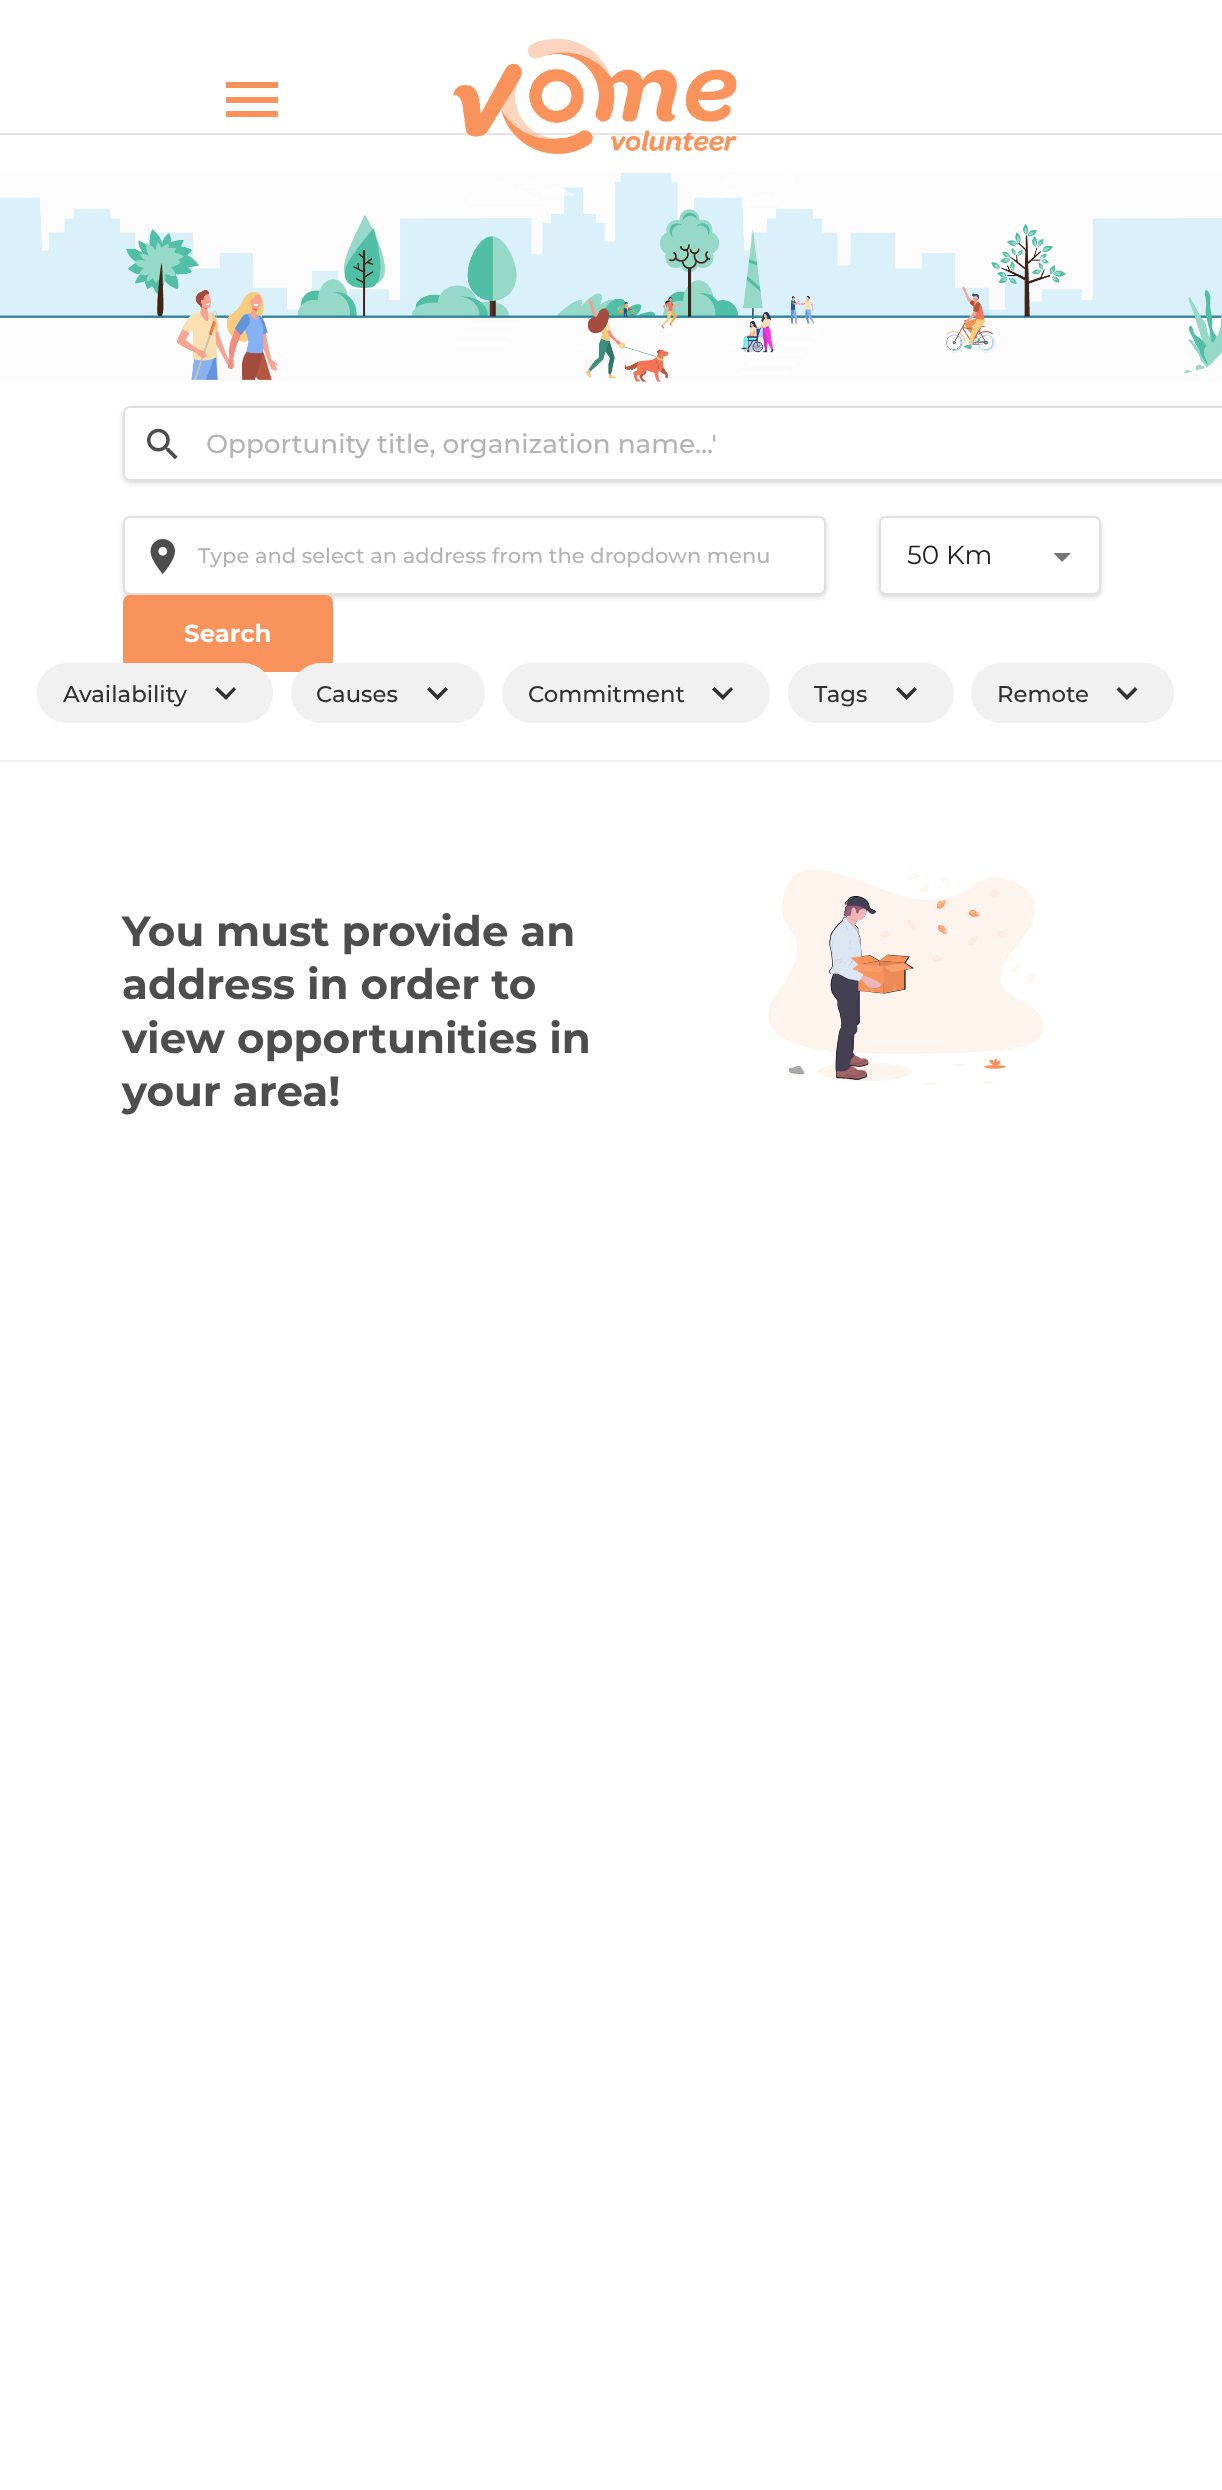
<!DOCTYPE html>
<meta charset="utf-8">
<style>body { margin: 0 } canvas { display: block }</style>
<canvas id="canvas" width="1222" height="2490"></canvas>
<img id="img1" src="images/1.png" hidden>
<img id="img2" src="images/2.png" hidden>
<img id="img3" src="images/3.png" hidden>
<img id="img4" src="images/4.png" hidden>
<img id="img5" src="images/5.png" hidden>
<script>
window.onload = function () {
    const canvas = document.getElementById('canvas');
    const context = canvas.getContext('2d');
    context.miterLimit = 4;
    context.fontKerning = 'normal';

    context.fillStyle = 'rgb(255, 255, 255)';
    context.fillRect(0, 0, 1222, 2490);
    context.fillStyle = 'rgb(230, 228, 228)';
    context.fillRect(0, 133, 1222, 2);
    context.fillStyle = 'rgb(250, 147, 91)';
    context.beginPath();
    context.moveTo(226, 117);
    context.lineTo(278, 117);
    context.lineTo(278, 111);
    context.lineTo(226, 111);
    context.closePath();
    context.moveTo(226, 103);
    context.lineTo(278, 103);
    context.lineTo(278, 97);
    context.lineTo(226, 97);
    context.closePath();
    context.moveTo(226, 82);
    context.lineTo(226, 88);
    context.lineTo(278, 88);
    context.lineTo(278, 82);
    context.closePath();
    context.fill();
    context.drawImage(document.getElementById('img1'), 453, 38, 284, 117);
    context.drawImage(document.getElementById('img2'), 0, 172, 1222, 210);
    context.save();
    context.beginPath();
    context.moveTo(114, 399);
    context.lineTo(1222, 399);
    context.lineTo(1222, 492);
    context.lineTo(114, 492);
    context.closePath();
    context.moveTo(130, 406);
    context.lineTo(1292, 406);
    context.bezierCurveTo(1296, 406, 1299, 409, 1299, 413);
    context.lineTo(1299, 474);
    context.bezierCurveTo(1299, 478, 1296, 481, 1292, 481);
    context.lineTo(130, 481);
    context.bezierCurveTo(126, 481, 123, 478, 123, 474);
    context.lineTo(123, 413);
    context.bezierCurveTo(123, 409, 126, 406, 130, 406);
    context.closePath();
    context.clip('evenodd');
    context.fillStyle = 'rgba(0, 0, 0, 0.16)';
    context.filter = 'blur(2.5px)';
    context.beginPath();
    context.roundRect(123, 408, 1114, 75, 7);
    context.fill();
    context.filter = 'none';
    context.restore();
    context.beginPath();
    context.roundRect(124, 407, 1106, 73, 6);
    context.strokeStyle = 'rgb(226, 224, 224)';
    context.lineWidth = 2;
    context.stroke();
    context.drawImage(document.getElementById('img3'), 147, 428, 31, 32);
    context.fillStyle = 'rgba(0, 0, 0, 0.16)';
    context.filter = 'blur(2.5px)';
    context.beginPath();
    context.roundRect(123, 518, 703, 79, 7);
    context.fill();
    context.filter = 'none';
    context.fillStyle = 'rgb(255, 255, 255)';
    context.beginPath();
    context.roundRect(124, 517, 701, 77, 6);
    context.fill();
    context.stroke();
    context.drawImage(document.getElementById('img4'), 150, 539, 25, 35);
    context.fillStyle = 'rgba(0, 0, 0, 0.16)';
    context.filter = 'blur(2.5px)';
    context.beginPath();
    context.roundRect(879, 518, 222, 79, 7);
    context.fill();
    context.filter = 'none';
    context.fillStyle = 'rgb(255, 255, 255)';
    context.beginPath();
    context.roundRect(880, 517, 220, 77, 6);
    context.fill();
    context.stroke();
    context.fillStyle = 'rgb(117, 117, 117)';
    context.beginPath();
    context.moveTo(1053.5, 553);
    context.lineTo(1062, 562);
    context.lineTo(1071, 553);
    context.closePath();
    context.fill();
    context.fillStyle = 'rgb(250, 147, 91)';
    context.beginPath();
    context.roundRect(123, 595, 210, 77, 7);
    context.fill();
    context.fillStyle = 'rgb(241, 241, 241)';
    context.fillRect(0, 760, 1222, 2);
    context.beginPath();
    context.roundRect(37, 663, 236, 60, 30);
    context.fill();
    context.fillStyle = 'rgb(48, 48, 48)';
    context.beginPath();
    context.moveTo(217.5, 687);
    context.lineTo(226, 695);
    context.lineTo(234, 687);
    context.lineTo(236, 689.5);
    context.lineTo(226, 700);
    context.lineTo(215, 689.5);
    context.closePath();
    context.fill();
    context.fillStyle = 'rgb(241, 241, 241)';
    context.beginPath();
    context.roundRect(291, 663, 194, 60, 30);
    context.fill();
    context.fillStyle = 'rgb(48, 48, 48)';
    context.beginPath();
    context.moveTo(429.5, 687);
    context.lineTo(437.5, 695);
    context.lineTo(445.5, 687);
    context.lineTo(448, 689.5);
    context.lineTo(437.5, 700);
    context.lineTo(427, 689.5);
    context.closePath();
    context.fill();
    context.fillStyle = 'rgb(241, 241, 241)';
    context.beginPath();
    context.roundRect(502, 663, 268, 60, 30);
    context.fill();
    context.fillStyle = 'rgb(48, 48, 48)';
    context.beginPath();
    context.moveTo(714.5, 687);
    context.lineTo(723, 695);
    context.lineTo(731, 687);
    context.lineTo(733, 689.5);
    context.lineTo(723, 700);
    context.lineTo(712, 689.5);
    context.closePath();
    context.fill();
    context.fillStyle = 'rgb(241, 241, 241)';
    context.beginPath();
    context.roundRect(788, 663, 166, 60, 30);
    context.fill();
    context.fillStyle = 'rgb(48, 48, 48)';
    context.beginPath();
    context.moveTo(898.5, 687);
    context.lineTo(906.5, 695);
    context.lineTo(914.5, 687);
    context.lineTo(917, 689.5);
    context.lineTo(906.5, 700);
    context.lineTo(896, 689.5);
    context.closePath();
    context.fill();
    context.fillStyle = 'rgb(241, 241, 241)';
    context.beginPath();
    context.roundRect(971, 663, 203, 60, 30);
    context.fill();
    context.fillStyle = 'rgb(48, 48, 48)';
    context.beginPath();
    context.moveTo(1119, 687);
    context.lineTo(1127, 695);
    context.lineTo(1135, 687);
    context.lineTo(1137.5, 689.5);
    context.lineTo(1127, 700);
    context.lineTo(1116.5, 689.5);
    context.closePath();
    context.fill();
    context.drawImage(document.getElementById('img5'), 768, 870, 275, 215);
    context.font = '500 26.25px Montserrat';
    context.fillStyle = 'rgb(180, 180, 180)';
    context.fillText('Opportunity title, organization name...\'', 206, 453);
    context.font = '500 21px Montserrat';
    context.fillText('Type and select an address from the dropdown menu', 198, 563);
    context.font = '26.25px Montserrat';
    context.fillStyle = 'rgb(33, 33, 33)';
    context.fillText('50 Km', 907, 564);
    context.font = 'bold 24.5px Montserrat';
    context.fillStyle = 'rgb(255, 255, 255)';
    context.fillText('Search', 184, 642);
    context.font = '500 22.75px Montserrat';
    context.fillStyle = 'rgb(48, 48, 48)';
    context.fillText('Availability', 63, 702);
    context.fillText('Causes', 316, 702);
    context.fillText('Commitment', 528, 702);
    context.fillText('Tags', 814, 702);
    context.fillText('Remote', 997, 702);
    context.font = 'bold 42px Montserrat';
    context.fillStyle = 'rgb(77, 77, 77)';
    context.fillText('You must provide an', 122, 946);
    context.fillText('address in order to', 122, 999);
    context.fillText('view opportunities in', 122, 1053);
    context.fillText('your area!', 122, 1106);
};
</script>
